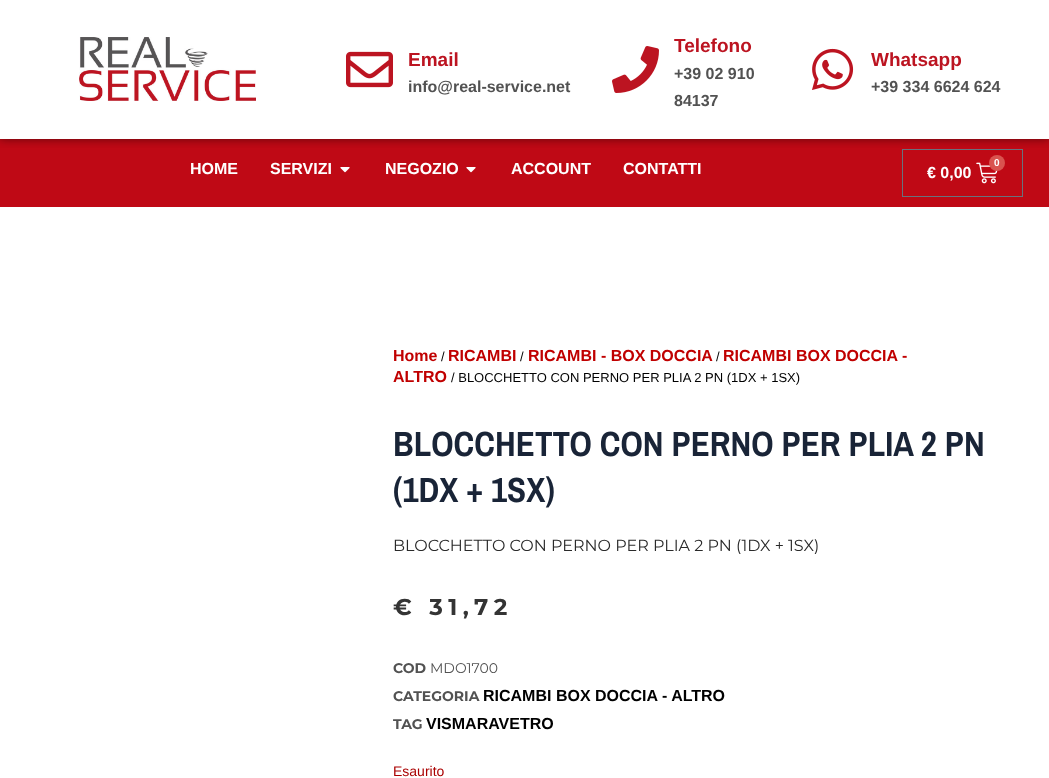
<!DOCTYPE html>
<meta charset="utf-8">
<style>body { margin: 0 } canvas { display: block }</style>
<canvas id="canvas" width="1049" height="778"></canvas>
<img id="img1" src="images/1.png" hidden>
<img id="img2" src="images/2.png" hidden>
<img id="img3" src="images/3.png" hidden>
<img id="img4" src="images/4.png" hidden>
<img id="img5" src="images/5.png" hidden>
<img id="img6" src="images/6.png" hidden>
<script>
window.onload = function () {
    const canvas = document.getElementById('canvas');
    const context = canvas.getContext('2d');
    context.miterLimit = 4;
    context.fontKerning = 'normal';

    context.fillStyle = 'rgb(255, 255, 255)';
    context.fillRect(0, 0, 1049, 778);
    context.fillStyle = 'rgb(191, 9, 21)';
    context.fillRect(0, 139, 1049, 68);
    context.strokeStyle = 'rgb(105, 114, 125)';
    context.strokeRect(902.5, 149.5, 120, 47);
    context.save();
    context.beginPath();
    context.rect(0, 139, 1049, 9);
    context.clip();
    context.fillStyle = 'rgba(0, 0, 0, 0.5)';
    context.filter = 'blur(5px)';
    context.beginPath();
    context.rect(0, 0, 1049, 139);
    context.fill();
    context.filter = 'none';
    context.restore();
    context.drawImage(document.getElementById('img1'), 79, 37, 177, 64);
    context.drawImage(document.getElementById('img2'), 346, 51, 47, 37);
    context.drawImage(document.getElementById('img3'), 612, 46, 47, 47);
    context.drawImage(document.getElementById('img4'), 812, 48, 42, 42);
    context.drawImage(document.getElementById('img5'), 340, 167, 10, 6);
    context.drawImage(document.getElementById('img5'), 466, 167, 10, 6);
    context.drawImage(document.getElementById('img6'), 976, 162, 22, 22);
    context.fillStyle = 'rgb(217, 83, 79)';
    context.beginPath();
    context.arc(997, 163, 8, 0, 2 * Math.PI);
    context.fill();
    context.font = 'bold 19px Liberation Sans';
    context.fillStyle = 'rgb(188, 20, 33)';
    context.fillText('Email', 408, 66);
    context.font = 'bold 16px Liberation Sans';
    context.fillStyle = 'rgb(82, 82, 82)';
    context.fillText('info@real-service.net', 408, 92);
    context.font = 'bold 19px Liberation Sans';
    context.fillStyle = 'rgb(188, 20, 33)';
    context.fillText('Telefono', 674, 52);
    context.font = 'bold 16px Liberation Sans';
    context.fillStyle = 'rgb(82, 82, 82)';
    context.fillText('+39 02 910', 674, 79);
    context.fillText('84137', 674, 106);
    context.font = 'bold 19px Liberation Sans';
    context.fillStyle = 'rgb(188, 20, 33)';
    context.fillText('Whatsapp', 871, 66);
    context.font = 'bold 16px Liberation Sans';
    context.fillStyle = 'rgb(82, 82, 82)';
    context.fillText('+39 334 6624 624', 871, 92);
    context.fillStyle = 'rgb(255, 255, 255)';
    context.fillText('HOME', 190, 174);
    context.fillText('SERVIZI', 270, 174);
    context.fillText('NEGOZIO', 385, 174);
    context.fillText('ACCOUNT', 511, 174);
    context.fillText('CONTATTI', 623, 174);
    context.font = 'bold 10px Liberation Sans';
    context.fillText('0', 994, 166);
    context.font = 'bold 16px Liberation Sans';
    context.fillText('€ 0,00', 927, 178);
    context.fillStyle = 'rgb(192, 0, 0)';
    context.fillText('Home', 393, 361);
    context.font = '13px Liberation Sans';
    context.fillStyle = 'rgb(0, 0, 0)';
    context.fillText('/', 441, 361);
    context.font = 'bold 16px Liberation Sans';
    context.fillStyle = 'rgb(192, 0, 0)';
    context.fillText('RICAMBI', 448, 361);
    context.font = '13px Liberation Sans';
    context.fillStyle = 'rgb(0, 0, 0)';
    context.fillText('/', 520, 361);
    context.font = 'bold 16px Liberation Sans';
    context.fillStyle = 'rgb(192, 0, 0)';
    context.fillText('RICAMBI - BOX DOCCIA', 528, 361);
    context.font = '13px Liberation Sans';
    context.fillStyle = 'rgb(0, 0, 0)';
    context.fillText('/', 716, 361);
    context.font = 'bold 16px Liberation Sans';
    context.fillStyle = 'rgb(192, 0, 0)';
    context.fillText('RICAMBI BOX DOCCIA -', 723, 361);
    context.fillText('ALTRO', 393, 382);
    context.font = '13px Liberation Sans';
    context.fillStyle = 'rgb(0, 0, 0)';
    context.fillText('/ BLOCCHETTO CON PERNO PER PLIA 2 PN (1DX + 1SX)', 451, 382);
    context.font = 'bold 35px Archivo Narrow';
    context.fillStyle = 'rgb(25, 36, 55)';
    context.fillText('BLOCCHETTO CON PERNO PER PLIA 2 PN', 393, 456);
    context.fillText('(1DX + 1SX)', 393, 502);
    context.font = '16px Montserrat';
    context.fillStyle = 'rgb(42, 42, 42)';
    context.fillText('BLOCCHETTO CON PERNO PER PLIA 2 PN (1DX + 1SX)', 393, 551);
    context.letterSpacing = '5.5px';
    context.font = 'bold 23px Montserrat';
    context.fillStyle = 'rgb(52, 52, 52)';
    context.fillText('€ 31,72', 393, 615);
    context.letterSpacing = '0px';
    context.font = 'bold 14px Montserrat';
    context.fillStyle = 'rgb(82, 82, 82)';
    context.fillText('COD', 393, 673);
    context.font = '14px Montserrat';
    context.fillText('MDO1700', 430, 673);
    context.font = 'bold 14px Montserrat';
    context.fillText('CATEGORIA', 393, 701);
    context.font = 'bold 16px Liberation Sans';
    context.fillStyle = 'rgb(0, 0, 0)';
    context.fillText('RICAMBI BOX DOCCIA - ALTRO', 483, 701);
    context.font = 'bold 14px Montserrat';
    context.fillStyle = 'rgb(82, 82, 82)';
    context.fillText('TAG', 393, 729);
    context.font = 'bold 16px Liberation Sans';
    context.fillStyle = 'rgb(0, 0, 0)';
    context.fillText('VISMARAVETRO', 426, 729);
    context.font = '14px Liberation Sans';
    context.fillStyle = 'rgb(170, 0, 0)';
    context.fillText('Esaurito', 393, 776);
};
</script>
